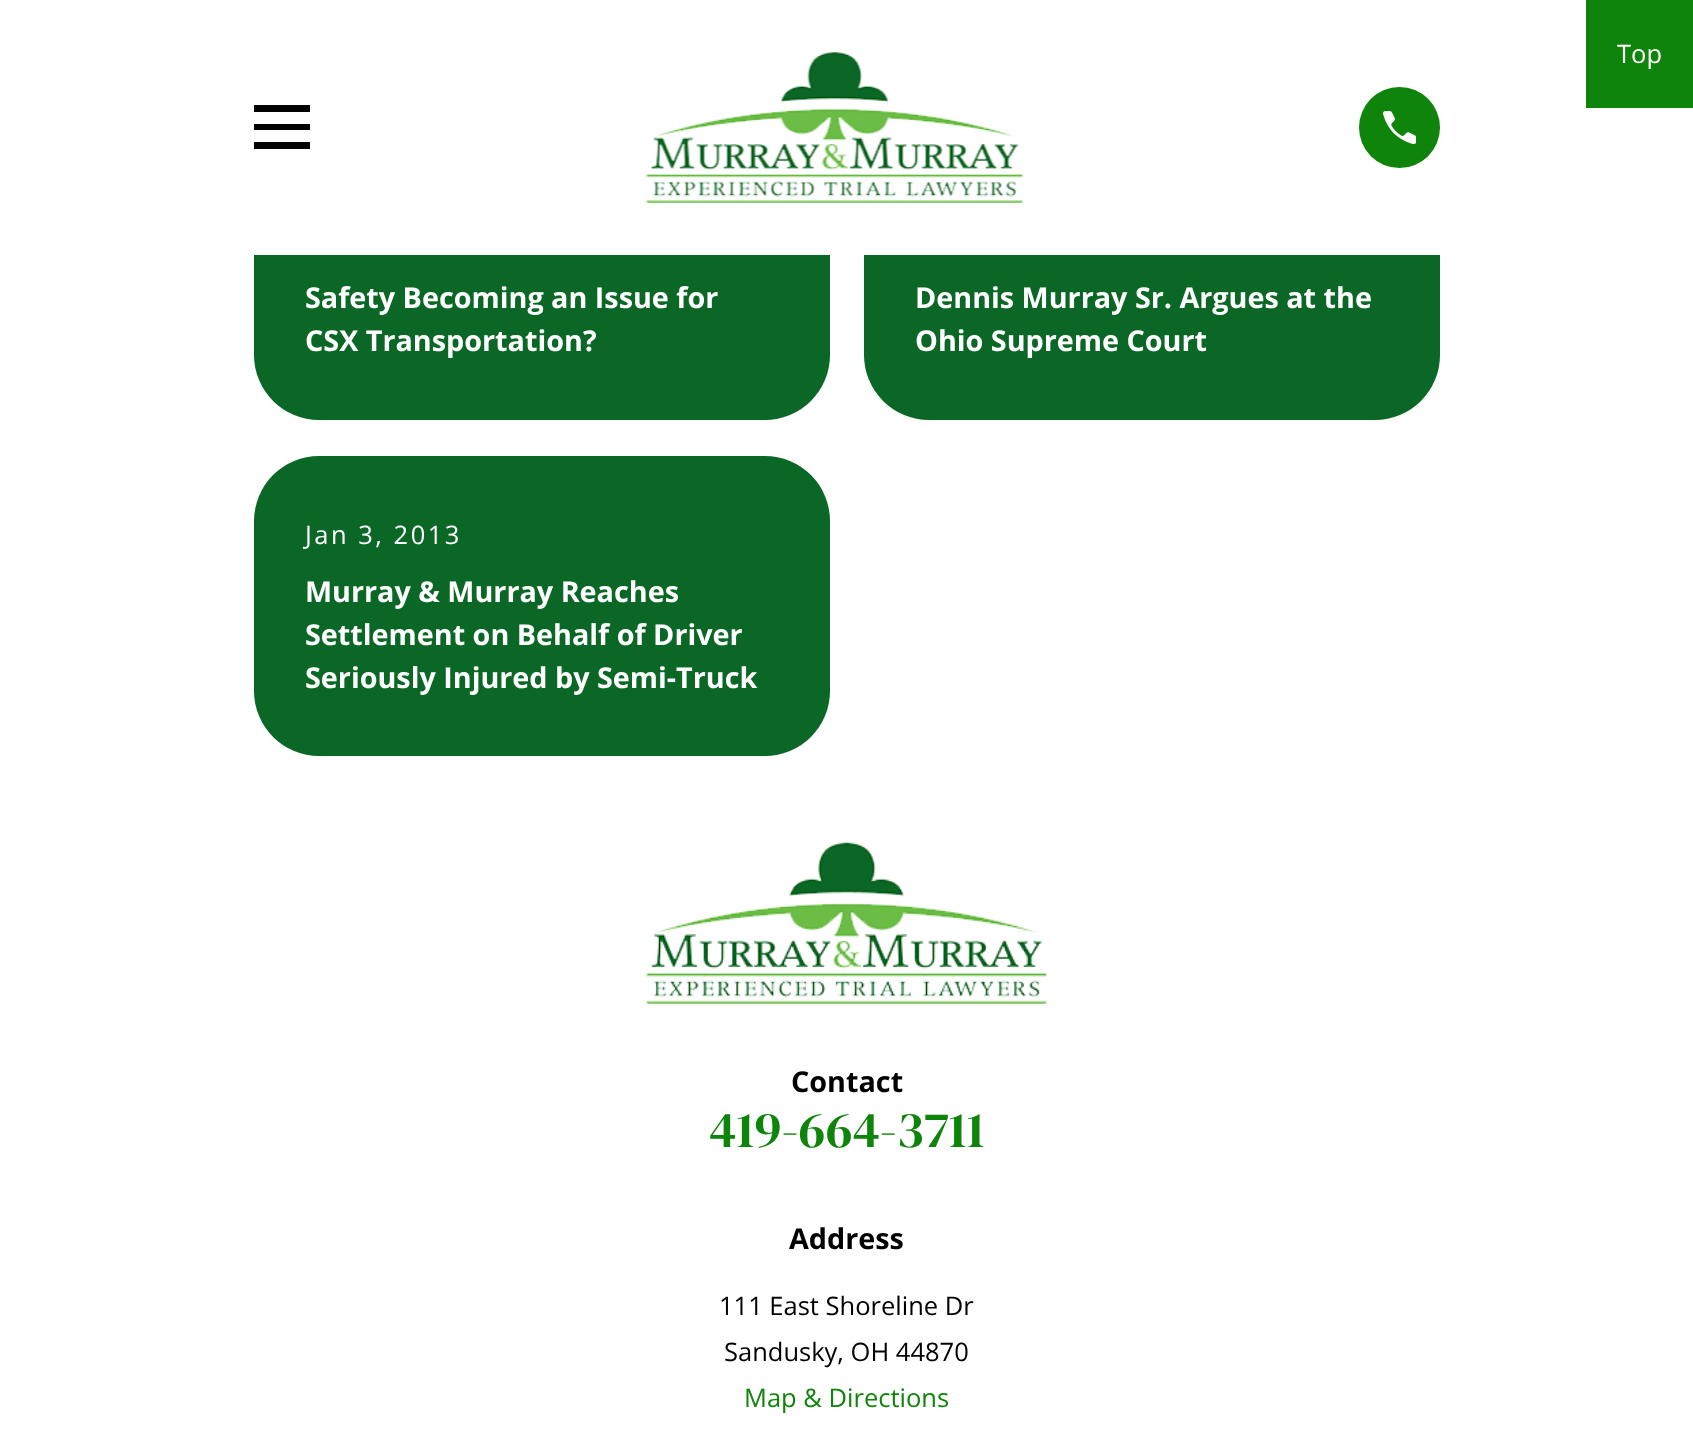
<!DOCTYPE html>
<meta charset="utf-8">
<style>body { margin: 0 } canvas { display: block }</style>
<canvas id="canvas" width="1693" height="1437"></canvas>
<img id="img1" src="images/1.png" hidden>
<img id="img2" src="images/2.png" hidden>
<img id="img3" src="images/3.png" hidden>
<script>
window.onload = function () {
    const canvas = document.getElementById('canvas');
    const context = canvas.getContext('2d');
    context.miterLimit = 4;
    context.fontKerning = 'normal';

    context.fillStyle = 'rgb(255, 255, 255)';
    context.fillRect(0, 0, 1693, 1437);
    context.fillStyle = 'rgb(11, 103, 38)';
    context.beginPath();
    context.roundRect(254, 162, 576, 258, 65);
    context.fill();
    context.beginPath();
    context.roundRect(864, 162, 576, 258, 65);
    context.fill();
    context.fillStyle = 'rgb(255, 255, 255)';
    context.fillRect(254, 162, 1186, 93);
    context.fillStyle = 'rgb(0, 0, 0)';
    context.beginPath();
    context.moveTo(254, 105);
    context.lineTo(254, 112);
    context.lineTo(310, 112);
    context.lineTo(310, 105);
    context.closePath();
    context.moveTo(254, 124);
    context.lineTo(254, 130);
    context.lineTo(310, 130);
    context.lineTo(310, 124);
    context.closePath();
    context.moveTo(254, 142);
    context.lineTo(254, 149);
    context.lineTo(310, 149);
    context.lineTo(310, 142);
    context.closePath();
    context.fill();
    context.drawImage(document.getElementById('img1'), 646, 51, 378, 152);
    context.fillStyle = 'rgb(15, 132, 10)';
    context.beginPath();
    context.arc(1399.5, 127.5, 40.5, 0, 2 * Math.PI);
    context.fill();
    context.drawImage(document.getElementById('img2'), 1383, 111, 33, 33);
    context.fillRect(1586, 0, 107, 108);
    context.fillStyle = 'rgb(11, 103, 38)';
    context.beginPath();
    context.roundRect(254, 456, 576, 300, 65);
    context.fill();
    context.drawImage(document.getElementById('img3'), 646, 842, 401, 162);
    context.font = '25.5px Open Sans';
    context.fillStyle = 'rgb(255, 255, 255)';
    context.fillText('Top', 1617, 63);
    context.font = 'bold 28.75px Open Sans';
    context.fillText('Safety Becoming an Issue for', 305, 308);
    context.fillText('CSX Transportation?', 305, 351);
    context.fillText('Dennis Murray Sr. Argues at the', 915, 308);
    context.fillText('Ohio Supreme Court', 915, 351);
    context.letterSpacing = '2.5px';
    context.font = '25.5px Open Sans';
    context.fillText('Jan 3, 2013', 305, 544);
    context.letterSpacing = '0px';
    context.font = 'bold 28.75px Open Sans';
    context.fillText('Murray & Murray Reaches', 305, 602);
    context.fillText('Settlement on Behalf of Driver', 305, 645);
    context.fillText('Seriously Injured by Semi-Truck', 305, 688);
    context.fillStyle = 'rgb(0, 0, 0)';
    context.fillText('Contact', 791, 1092);
    context.font = '51px DM Serif Display';
    context.fillStyle = 'rgb(15, 132, 10)';
    context.fillText('419-664-3711', 709, 1147);
    context.font = 'bold 28.75px Open Sans';
    context.fillStyle = 'rgb(0, 0, 0)';
    context.fillText('Address', 789, 1249);
    context.font = '25.5px Open Sans';
    context.fillText('111 East Shoreline Dr', 719, 1315);
    context.fillText('Sandusky, OH 44870', 724, 1361);
    context.fillStyle = 'rgb(15, 132, 10)';
    context.fillText('Map & Directions', 744, 1407);
};
</script>
